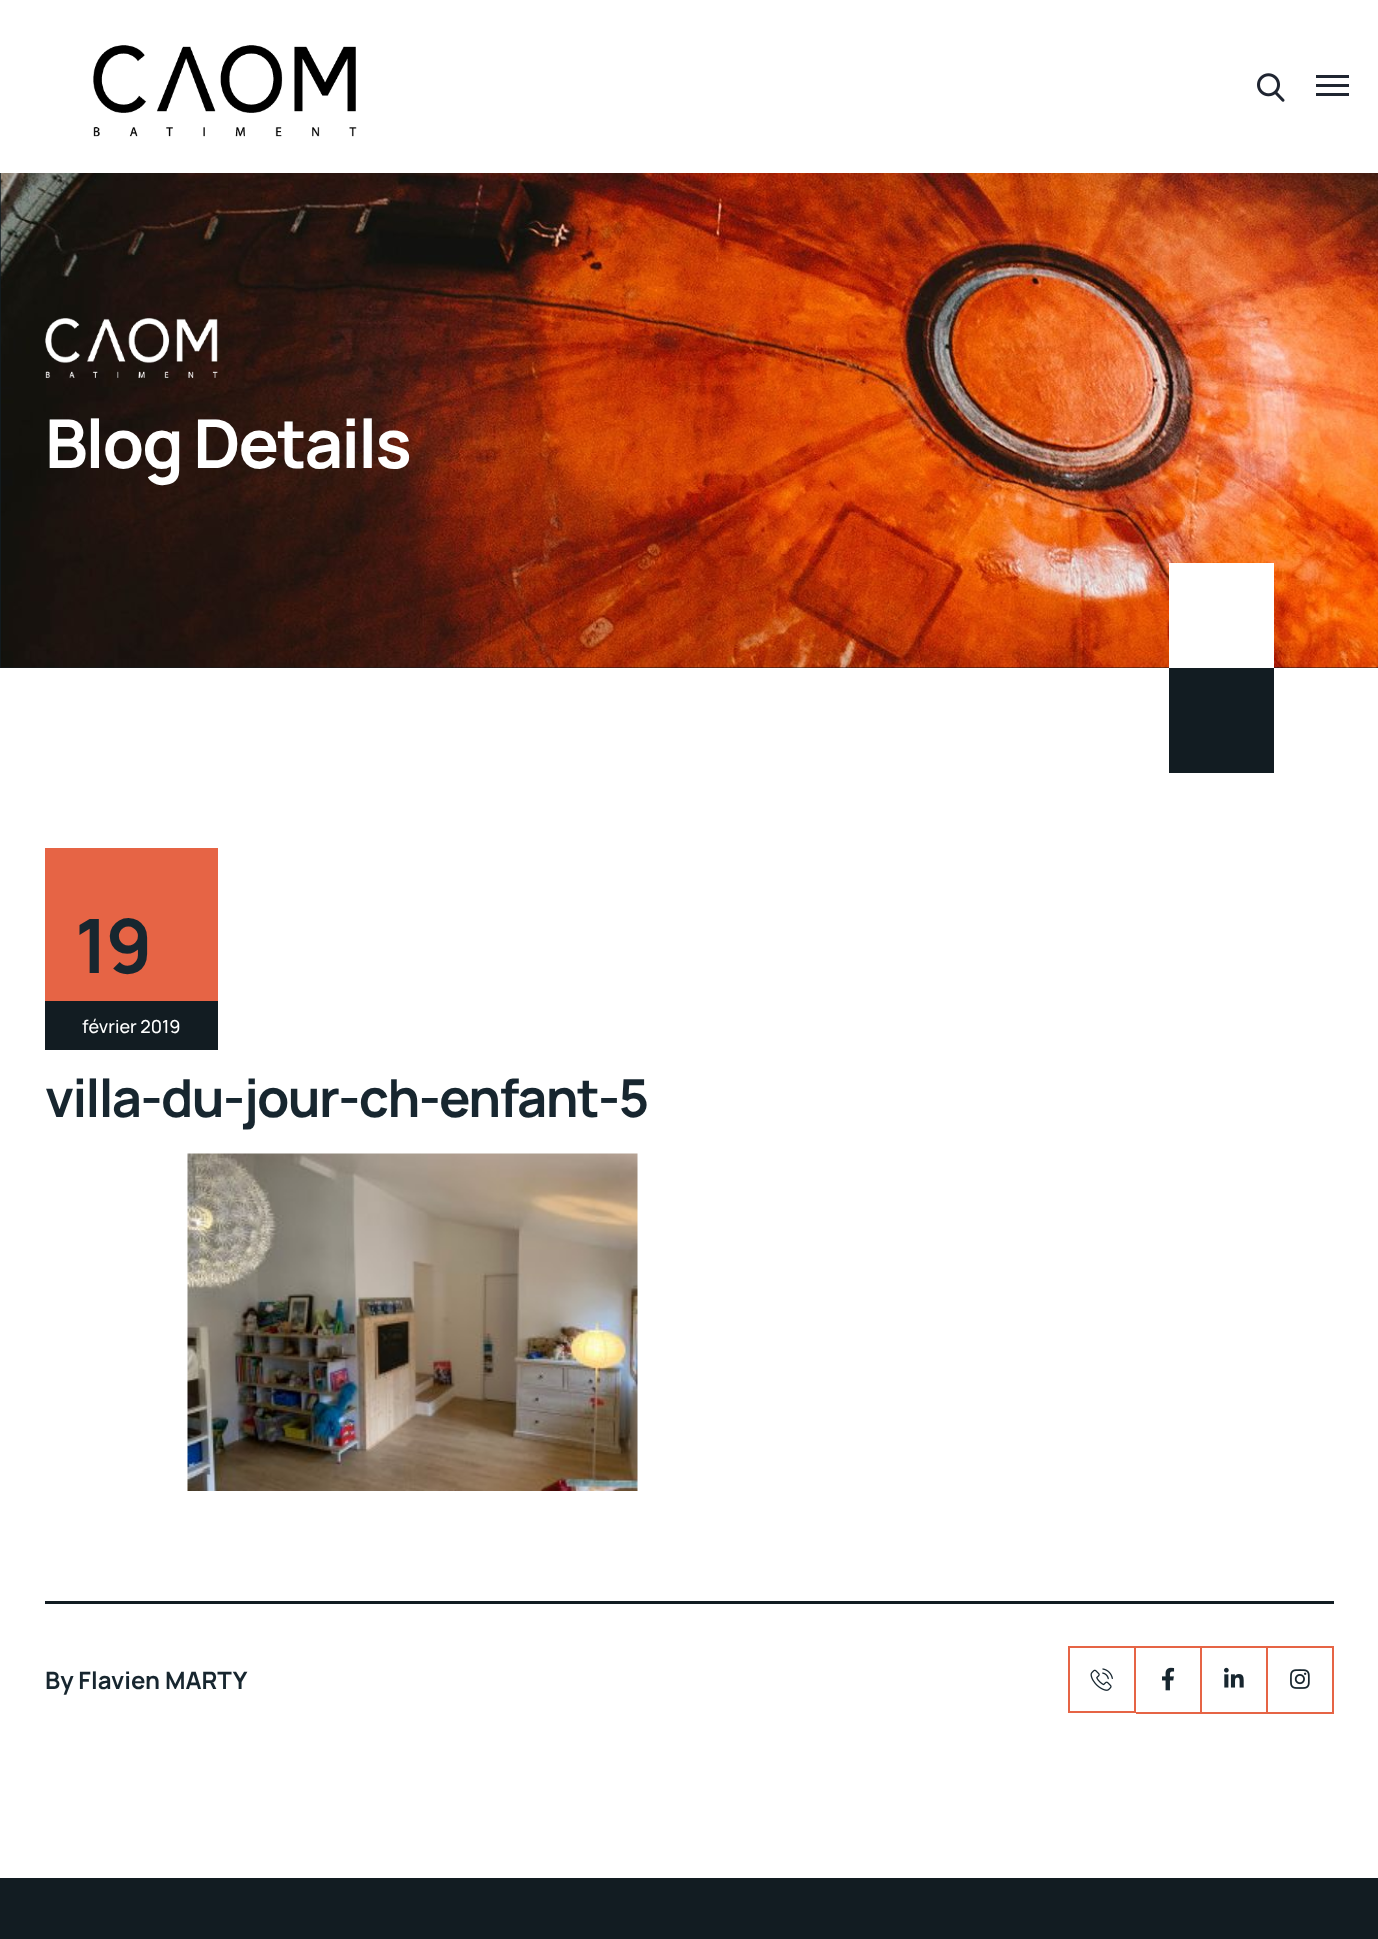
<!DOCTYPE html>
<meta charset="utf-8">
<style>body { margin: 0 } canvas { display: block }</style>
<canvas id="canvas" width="1378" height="1939"></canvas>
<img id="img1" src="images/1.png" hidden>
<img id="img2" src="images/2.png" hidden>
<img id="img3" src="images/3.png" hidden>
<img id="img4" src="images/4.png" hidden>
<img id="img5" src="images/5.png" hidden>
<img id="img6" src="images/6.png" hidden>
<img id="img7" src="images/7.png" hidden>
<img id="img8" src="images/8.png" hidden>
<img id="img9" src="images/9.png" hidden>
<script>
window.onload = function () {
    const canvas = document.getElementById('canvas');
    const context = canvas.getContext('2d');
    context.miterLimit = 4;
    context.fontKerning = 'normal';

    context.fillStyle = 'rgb(255, 255, 255)';
    context.fillRect(0, 0, 1378, 1939);
    context.drawImage(document.getElementById('img1'), 93, 45, 264, 92);
    context.drawImage(document.getElementById('img2'), 1257, 73, 28, 29);
    context.fillStyle = 'rgb(31, 37, 49)';
    context.fillRect(1316, 75, 33, 3);
    context.fillRect(1316, 84, 33, 3);
    context.fillRect(1316, 93, 33, 3);
    context.fillStyle = 'rgb(18, 28, 34)';
    context.fillRect(0, 173, 1378, 495);
    context.drawImage(document.getElementById('img3'), 0, 173, 1378, 495);
    context.drawImage(document.getElementById('img4'), 45, 318, 173, 60);
    context.fillStyle = 'rgb(255, 255, 255)';
    context.fillRect(1169, 563, 105, 105);
    context.fillStyle = 'rgb(18, 28, 34)';
    context.fillRect(1169, 668, 105, 105);
    context.fillStyle = 'rgb(230, 100, 69)';
    context.fillRect(45, 848, 173, 153);
    context.fillStyle = 'rgb(18, 28, 34)';
    context.fillRect(45, 1001, 173, 49);
    context.drawImage(document.getElementById('img5'), 187, 1153, 451, 338);
    context.fillRect(45, 1601, 1289, 3);
    context.strokeStyle = 'rgb(230, 100, 69)';
    context.lineWidth = 2;
    context.strokeRect(1069, 1647, 66, 65);
    context.drawImage(document.getElementById('img6'), 1090, 1668, 23, 23);
    context.fillStyle = 'rgb(230, 100, 69)';
    context.fillRect(1136, 1646, 198, 2);
    context.fillRect(1200, 1646, 2, 67);
    context.fillRect(1136, 1712, 66, 2);
    context.drawImage(document.getElementById('img7'), 1162, 1667, 13, 24);
    context.fillRect(1266, 1646, 2, 67);
    context.fillRect(1202, 1712, 66, 2);
    context.drawImage(document.getElementById('img8'), 1224, 1667, 20, 21);
    context.fillRect(1332, 1646, 2, 67);
    context.fillRect(1268, 1712, 66, 2);
    context.drawImage(document.getElementById('img9'), 1290, 1669, 20, 20);
    context.fillStyle = 'rgb(18, 28, 34)';
    context.fillRect(0, 1878, 1378, 61);
    context.letterSpacing = '-2px';
    context.font = 'bold 67.5px Manrope';
    context.fillStyle = 'rgb(255, 255, 255)';
    context.fillText('Blog Details', 45, 468);
    context.font = 'bold 75px Manrope';
    context.fillStyle = 'rgb(23, 38, 47)';
    context.fillText('19', 75, 973);
    context.letterSpacing = '0px';
    context.font = '500 18px Manrope';
    context.fillStyle = 'rgb(255, 255, 255)';
    context.fillText('février 2019', 82, 1033);
    context.letterSpacing = '-1.6px';
    context.font = 'bold 52.5px Manrope';
    context.fillStyle = 'rgb(23, 38, 47)';
    context.fillText('villa-du-jour-ch-enfant-5', 45, 1117);
    context.letterSpacing = '0px';
    context.font = 'bold 24px Manrope';
    context.fillText('By Flavien MARTY', 45, 1689);
};
</script>
